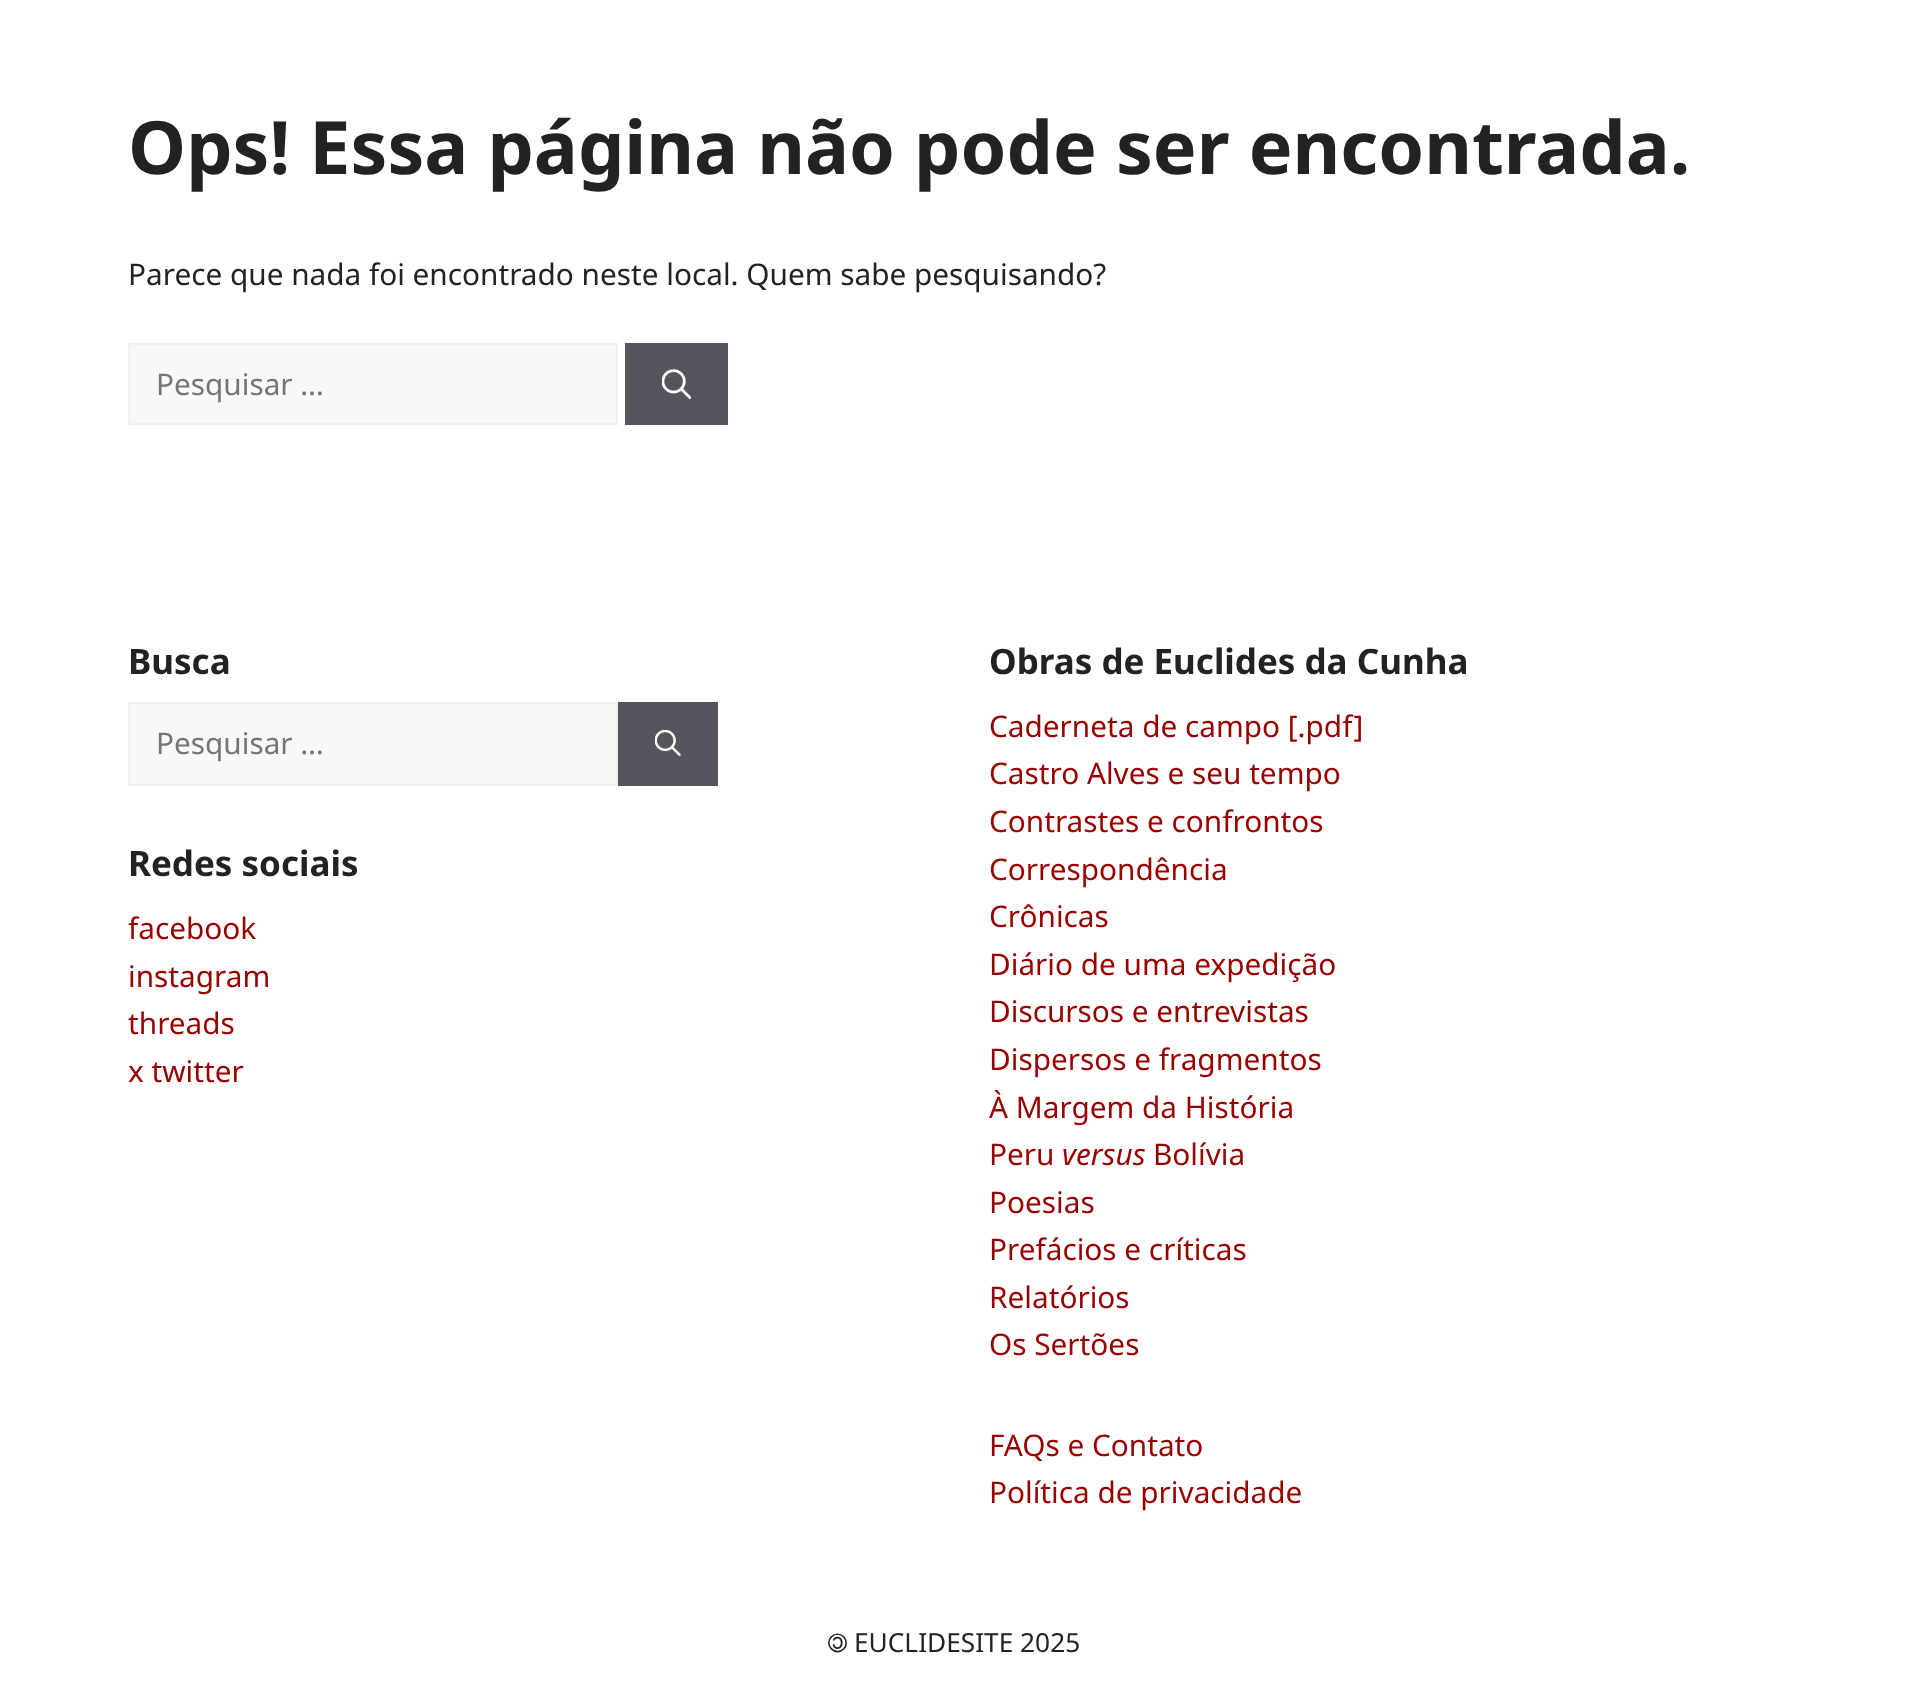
<!DOCTYPE html>
<meta charset="utf-8">
<style>body { margin: 0 } canvas { display: block }</style>
<canvas id="canvas" width="1907" height="1697"></canvas>
<img id="img1" src="images/1.png" hidden>
<img id="img2" src="images/2.png" hidden>
<script>
window.onload = function () {
    const canvas = document.getElementById('canvas');
    const context = canvas.getContext('2d');
    context.miterLimit = 4;
    context.fontKerning = 'normal';

    context.fillStyle = 'rgb(255, 255, 255)';
    context.fillRect(0, 0, 1907, 1697);
    context.fillStyle = 'rgb(247, 248, 249)';
    context.beginPath();
    context.rect(129, 344, 488, 80);
    context.fill();
    context.strokeStyle = 'rgb(240, 240, 240)';
    context.lineWidth = 2;
    context.stroke();
    context.fillStyle = 'rgb(85, 85, 94)';
    context.fillRect(625, 343, 103, 82);
    context.drawImage(document.getElementById('img1'), 662, 369, 29, 30);
    context.fillStyle = 'rgb(247, 248, 249)';
    context.beginPath();
    context.rect(129, 703, 488, 82);
    context.fill();
    context.stroke();
    context.fillStyle = 'rgb(85, 85, 94)';
    context.fillRect(618, 702, 100, 84);
    context.drawImage(document.getElementById('img2'), 655, 730, 26, 26);
    context.font = 'bold 73.5px Noto Sans';
    context.fillStyle = 'rgb(34, 34, 34)';
    context.fillText('Ops! Essa página não pode ser encontrada.', 128, 174);
    context.font = '29.75px Noto Sans';
    context.fillText('Parece que nada foi encontrado neste local. Quem sabe pesquisando?', 128, 285);
    context.fillStyle = 'rgb(117, 117, 117)';
    context.fillText('Pesquisar …', 156, 395);
    context.font = 'bold 35px Noto Sans';
    context.fillStyle = 'rgb(34, 34, 34)';
    context.fillText('Busca', 128, 674);
    context.font = '29.75px Noto Sans';
    context.fillStyle = 'rgb(117, 117, 117)';
    context.fillText('Pesquisar …', 156, 754);
    context.font = 'bold 35px Noto Sans';
    context.fillStyle = 'rgb(34, 34, 34)';
    context.fillText('Redes sociais', 128, 876);
    context.font = '29.75px Noto Sans';
    context.fillStyle = 'rgb(153, 0, 0)';
    context.fillText('facebook', 128, 939);
    context.fillText('instagram', 128, 987);
    context.fillText('threads', 128, 1034);
    context.fillText('x twitter', 128, 1082);
    context.font = 'bold 35px Noto Sans';
    context.fillStyle = 'rgb(34, 34, 34)';
    context.fillText('Obras de Euclides da Cunha', 989, 674);
    context.font = '29.75px Noto Sans';
    context.fillStyle = 'rgb(153, 0, 0)';
    context.fillText('Caderneta de campo [.pdf]', 989, 737);
    context.fillText('Castro Alves e seu tempo', 989, 784);
    context.fillText('Contrastes e confrontos', 989, 832);
    context.fillText('Correspondência', 989, 880);
    context.fillText('Crônicas', 989, 927);
    context.fillText('Diário de uma expedição', 989, 975);
    context.fillText('Discursos e entrevistas', 989, 1022);
    context.fillText('Dispersos e fragmentos', 989, 1070);
    context.fillText('À Margem da História', 989, 1118);
    context.fillText('Peru', 989, 1165);
    context.font = 'italic 29.75px Noto Sans';
    context.fillText('versus', 1062, 1165);
    context.font = '29.75px Noto Sans';
    context.fillText('Bolívia', 1153, 1165);
    context.fillText('Poesias', 989, 1213);
    context.fillText('Prefácios e críticas', 989, 1260);
    context.fillText('Relatórios', 989, 1308);
    context.fillText('Os Sertões', 989, 1355);
    context.fillText('FAQs e Contato', 989, 1456);
    context.fillText('Política de privacidade', 989, 1503);
    context.font = '26.25px FreeSans';
    context.fillStyle = 'rgb(34, 34, 34)';
    context.fillText('🄯', 827, 1652);
    context.font = '26.25px Noto Sans';
    context.fillText('EUCLIDESITE 2025', 854, 1652);
};
</script>
